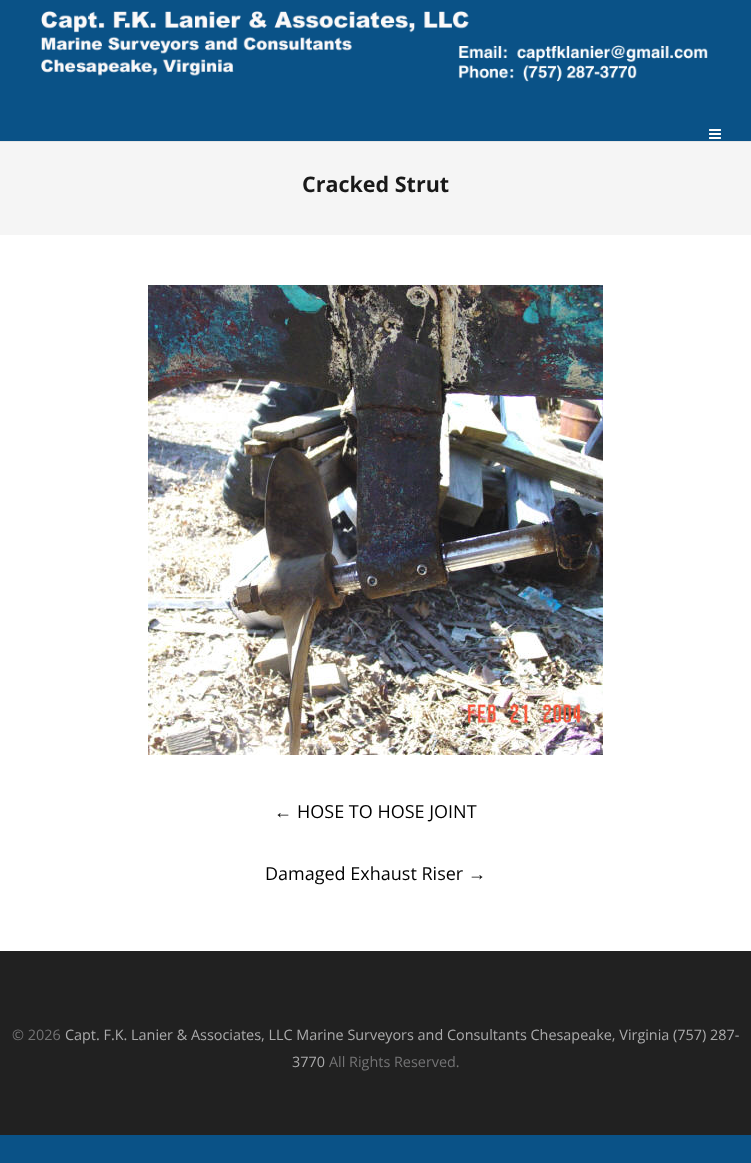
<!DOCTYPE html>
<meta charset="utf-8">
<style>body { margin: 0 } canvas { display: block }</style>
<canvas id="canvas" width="751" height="1163"></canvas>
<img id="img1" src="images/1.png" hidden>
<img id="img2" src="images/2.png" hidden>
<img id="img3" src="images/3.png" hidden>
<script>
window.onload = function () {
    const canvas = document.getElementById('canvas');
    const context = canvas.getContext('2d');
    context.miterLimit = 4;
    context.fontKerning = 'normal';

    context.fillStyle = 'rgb(10, 82, 135)';
    context.fillRect(0, 0, 751, 1163);
    context.fillStyle = 'rgb(255, 255, 255)';
    context.fillRect(0, 235, 751, 716);
    context.fillStyle = 'rgb(230, 230, 230)';
    context.fillRect(0, 141, 751, 1);
    context.drawImage(document.getElementById('img1'), 41, 11, 667, 71);
    context.drawImage(document.getElementById('img2'), 709, 129, 12, 10);
    context.fillStyle = 'rgb(245, 245, 245)';
    context.fillRect(0, 142, 751, 93);
    context.drawImage(document.getElementById('img3'), 148, 285, 455, 470);
    context.fillStyle = 'rgb(33, 33, 33)';
    context.fillRect(0, 951, 751, 184);
    context.font = 'bold 21.5px Open Sans';
    context.fillStyle = 'rgb(25, 25, 25)';
    context.fillText('Cracked Strut', 302, 192);
    context.font = '18px Liberation Sans';
    context.fillStyle = 'rgb(0, 0, 0)';
    context.fillText('←', 274, 818);
    context.font = '18px Open Sans';
    context.fillText('HOSE TO HOSE JOINT', 297, 818);
    context.fillText('Damaged Exhaust Riser', 265, 880);
    context.font = '18px Liberation Sans';
    context.fillText('→', 468, 880);
    context.font = '14.4px Open Sans';
    context.fillStyle = 'rgb(116, 116, 117)';
    context.fillText('© 2026', 12, 1040);
    context.fillStyle = 'rgb(171, 171, 172)';
    context.fillText('Capt. F.K. Lanier & Associates, LLC Marine Surveyors and Consultants Chesapeake, Virginia (757) 287-', 65, 1040);
    context.fillText('3770', 292, 1067);
    context.fillStyle = 'rgb(116, 116, 117)';
    context.fillText('All Rights Reserved.', 329, 1067);
};
</script>
